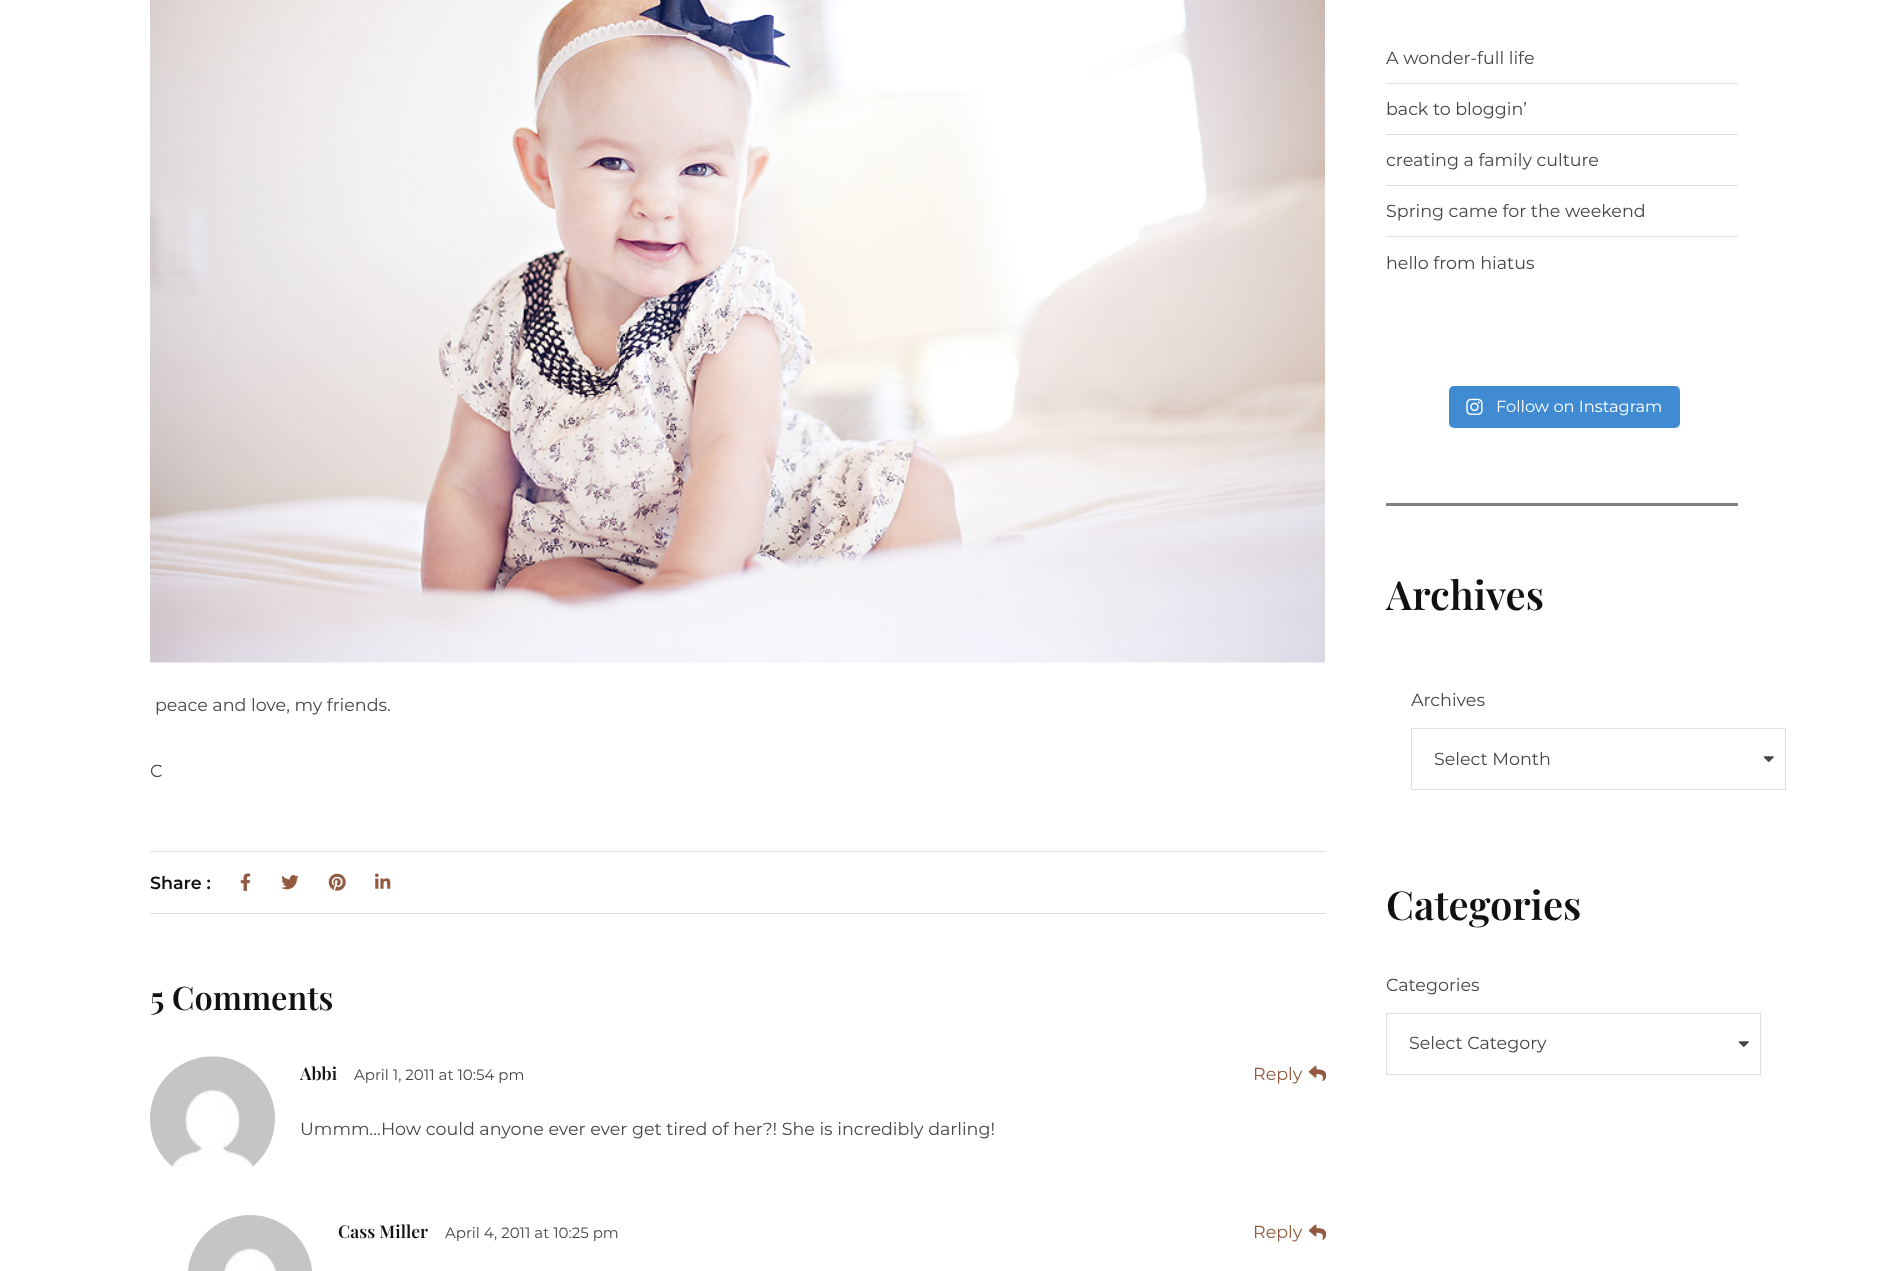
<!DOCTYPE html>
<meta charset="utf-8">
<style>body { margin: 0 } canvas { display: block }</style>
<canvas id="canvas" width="1887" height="1271"></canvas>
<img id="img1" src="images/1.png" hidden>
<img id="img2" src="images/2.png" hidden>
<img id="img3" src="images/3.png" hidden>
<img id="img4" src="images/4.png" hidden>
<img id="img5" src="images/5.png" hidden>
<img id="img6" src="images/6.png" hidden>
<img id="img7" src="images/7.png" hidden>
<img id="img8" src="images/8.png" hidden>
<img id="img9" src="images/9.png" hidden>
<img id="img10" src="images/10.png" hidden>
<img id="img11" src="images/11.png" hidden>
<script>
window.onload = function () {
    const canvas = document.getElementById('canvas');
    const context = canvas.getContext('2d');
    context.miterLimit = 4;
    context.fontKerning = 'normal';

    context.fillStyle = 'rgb(255, 255, 255)';
    context.fillRect(0, 0, 1887, 1271);
    context.drawImage(document.getElementById('img1'), 150, 0, 1175, 663);
    context.fillStyle = 'rgb(221, 221, 221)';
    context.fillRect(150, 851, 1176, 1);
    context.fillRect(150, 913, 1176, 1);
    context.drawImage(document.getElementById('img2'), 240, 873, 11, 18);
    context.drawImage(document.getElementById('img3'), 281, 875, 18, 15);
    context.drawImage(document.getElementById('img4'), 328, 873, 18, 18);
    context.drawImage(document.getElementById('img5'), 375, 873, 16, 16);
    context.drawImage(document.getElementById('img6'), 150, 1056, 125, 111);
    context.drawImage(document.getElementById('img7'), 1308, 1065, 18, 16);
    context.drawImage(document.getElementById('img8'), 188, 1215, 124, 56);
    context.drawImage(document.getElementById('img9'), 1308, 1224, 18, 16);
    context.fillRect(1386, 83, 352, 1);
    context.fillRect(1386, 134, 352, 1);
    context.fillRect(1386, 185, 352, 1);
    context.fillRect(1386, 236, 352, 1);
    context.fillStyle = 'rgb(64, 139, 209)';
    context.beginPath();
    context.roundRect(1449, 386, 231, 42, 5);
    context.fill();
    context.drawImage(document.getElementById('img10'), 1466, 398, 17, 17);
    context.fillStyle = 'rgb(128, 128, 128)';
    context.fillRect(1386, 503, 352, 3);
    context.strokeStyle = 'rgb(221, 221, 221)';
    context.strokeRect(1411.5, 728.5, 374, 61);
    context.drawImage(document.getElementById('img11'), 1763, 756, 11, 6);
    context.strokeRect(1386.5, 1013.5, 374, 61);
    context.drawImage(document.getElementById('img11'), 1738, 1041, 11, 6);
    context.font = '17.5px Montserrat';
    context.fillStyle = 'rgb(70, 70, 70)';
    context.fillText('peace and love, my friends.', 155, 711);
    context.fillText('C', 150, 777);
    context.font = '600 17.5px Montserrat';
    context.fillStyle = 'rgb(17, 17, 17)';
    context.fillText('Share :', 150, 889);
    context.font = '600 32.5px Playfair Display';
    context.fillText('5 Comments', 150, 1010);
    context.font = '600 17.5px Playfair Display';
    context.fillText('Abbi', 300, 1080);
    context.font = '15px Montserrat';
    context.fillStyle = 'rgb(70, 70, 70)';
    context.fillText('April 1, 2011 at 10:54 pm', 354, 1080);
    context.font = '17.5px Montserrat';
    context.fillStyle = 'rgb(146, 90, 65)';
    context.fillText('Reply', 1253, 1080);
    context.fillStyle = 'rgb(70, 70, 70)';
    context.fillText('Ummm…How could anyone ever ever get tired of her?! She is incredibly darling!', 300, 1135);
    context.font = '600 17.5px Playfair Display';
    context.fillStyle = 'rgb(17, 17, 17)';
    context.fillText('Cass Miller', 338, 1238);
    context.font = '15px Montserrat';
    context.fillStyle = 'rgb(70, 70, 70)';
    context.fillText('April 4, 2011 at 10:25 pm', 445, 1238);
    context.font = '17.5px Montserrat';
    context.fillStyle = 'rgb(146, 90, 65)';
    context.fillText('Reply', 1253, 1238);
    context.fillStyle = 'rgb(70, 70, 70)';
    context.fillText('A wonder-full life', 1386, 64);
    context.fillText('back to bloggin’', 1386, 115);
    context.fillText('creating a family culture', 1386, 166);
    context.fillText('Spring came for the weekend', 1386, 217);
    context.fillText('hello from hiatus', 1386, 269);
    context.font = '16.25px Montserrat';
    context.fillStyle = 'rgb(255, 255, 255)';
    context.fillText('Follow on Instagram', 1496, 412);
    context.font = '600 40px Playfair Display';
    context.fillStyle = 'rgb(17, 17, 17)';
    context.fillText('Archives', 1386, 610);
    context.font = '17.5px Montserrat';
    context.fillStyle = 'rgb(70, 70, 70)';
    context.fillText('Archives', 1411, 706);
    context.fillText('Select Month', 1434, 765);
    context.font = '600 40px Playfair Display';
    context.fillStyle = 'rgb(17, 17, 17)';
    context.fillText('Categories', 1386, 920);
    context.font = '17.5px Montserrat';
    context.fillStyle = 'rgb(70, 70, 70)';
    context.fillText('Categories', 1386, 991);
    context.fillText('Select Category', 1409, 1049);
};
</script>
